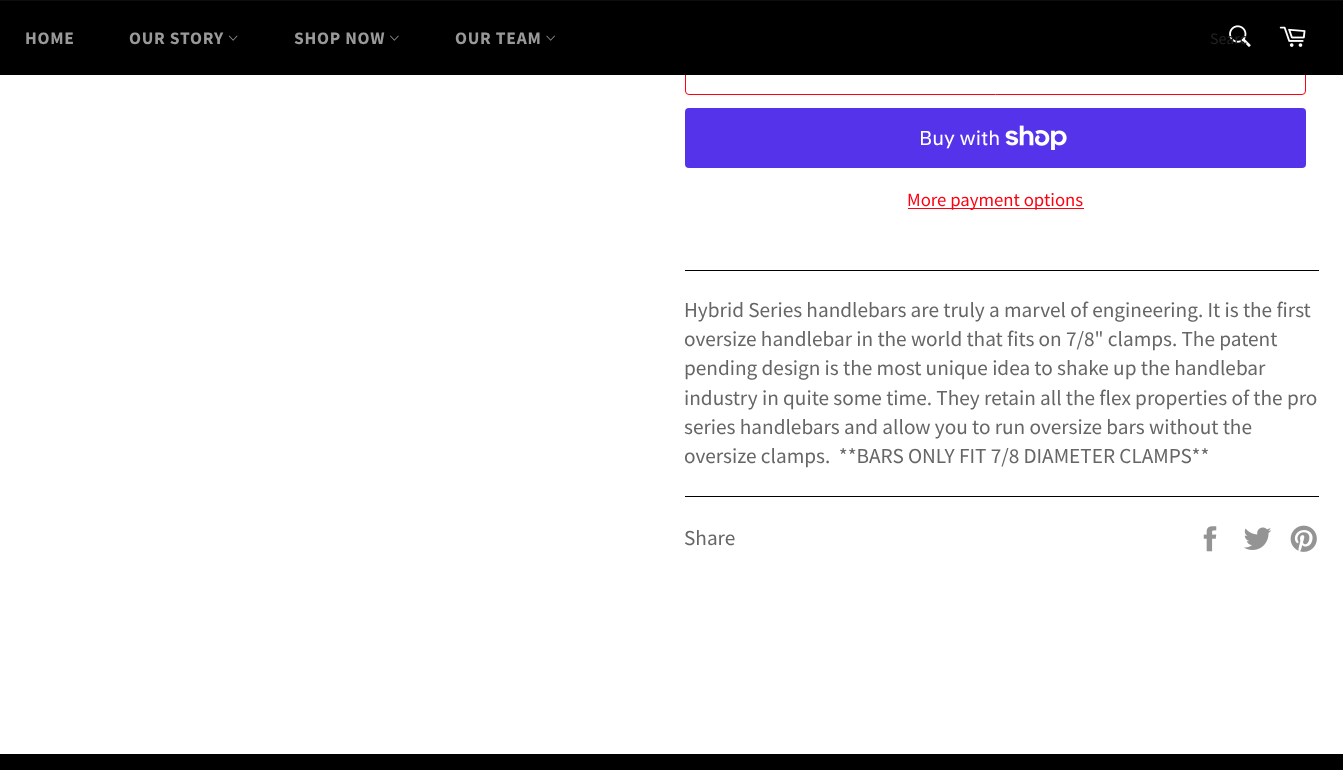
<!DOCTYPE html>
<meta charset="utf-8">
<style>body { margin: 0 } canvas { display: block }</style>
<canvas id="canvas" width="1343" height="770"></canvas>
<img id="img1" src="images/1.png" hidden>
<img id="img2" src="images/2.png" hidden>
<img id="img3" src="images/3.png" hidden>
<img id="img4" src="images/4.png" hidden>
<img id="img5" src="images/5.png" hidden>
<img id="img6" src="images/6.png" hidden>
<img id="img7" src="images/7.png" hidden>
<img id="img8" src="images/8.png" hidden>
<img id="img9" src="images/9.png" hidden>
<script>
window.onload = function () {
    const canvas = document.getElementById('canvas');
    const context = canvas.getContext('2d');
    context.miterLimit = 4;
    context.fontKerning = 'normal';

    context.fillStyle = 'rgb(255, 255, 255)';
    context.fillRect(0, 0, 1343, 770);
    context.beginPath();
    context.roundRect(685.5, 35.5, 620, 59, 3.5);
    context.strokeStyle = 'rgb(255, 0, 17)';
    context.stroke();
    context.fillStyle = 'rgb(0, 0, 0)';
    context.fillRect(0, 1, 1343, 74);
    context.fillStyle = 'rgb(13, 13, 13)';
    context.fillRect(0, 0, 1343, 1);
    context.drawImage(document.getElementById('img1'), 228, 35, 10, 6);
    context.drawImage(document.getElementById('img2'), 390, 35, 9, 6);
    context.drawImage(document.getElementById('img3'), 546, 35, 9, 6);
    context.drawImage(document.getElementById('img4'), 1229, 25, 22, 22);
    context.drawImage(document.getElementById('img5'), 1279, 26, 27, 21);
    context.fillStyle = 'rgb(84, 51, 235)';
    context.beginPath();
    context.roundRect(685, 108, 621, 60, 4);
    context.fill();
    context.drawImage(document.getElementById('img6'), 1005, 125, 62, 25);
    context.fillStyle = 'rgb(255, 0, 17)';
    context.fillRect(908, 208, 176, 1);
    context.fillStyle = 'rgb(0, 0, 0)';
    context.fillRect(685, 270, 634, 1);
    context.fillRect(685, 496, 634, 1);
    context.drawImage(document.getElementById('img7'), 1203, 526, 14, 26);
    context.drawImage(document.getElementById('img8'), 1244, 527, 28, 23);
    context.drawImage(document.getElementById('img9'), 1290, 525, 27, 27);
    context.fillRect(0, 754, 1343, 16);
    context.letterSpacing = '0.75px';
    context.font = 'bold 17.5px Source Sans Pro';
    context.fillStyle = 'rgb(153, 153, 153)';
    context.fillText('HOME', 25, 44);
    context.fillText('OUR STORY', 129, 44);
    context.fillText('SHOP NOW', 294, 44);
    context.fillText('OUR TEAM', 455, 44);
    context.letterSpacing = '0px';
    context.font = '16px Source Sans Pro';
    context.fillStyle = 'rgb(34, 34, 34)';
    context.fillText('Searc', 1210, 44);
    context.font = '20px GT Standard';
    context.fillStyle = 'rgb(255, 255, 255)';
    context.fillText('Buy with', 919, 145);
    context.font = '18.75px Source Sans Pro';
    context.fillStyle = 'rgb(255, 0, 17)';
    context.fillText('More payment options', 907, 206);
    context.font = '21.25px Source Sans Pro';
    context.fillStyle = 'rgb(102, 102, 102)';
    context.fillText('Hybrid Series handlebars are truly a marvel of engineering. It is the first', 684, 317);
    context.fillText('oversize handlebar in the world that fits on 7/8" clamps. The patent', 684, 346);
    context.fillText('pending design is the most unique idea to shake up the handlebar', 684, 375);
    context.fillText('industry in quite some time. They retain all the flex properties of the pro', 684, 405);
    context.fillText('series handlebars and allow you to run oversize bars without the', 684, 434);
    context.fillText('oversize clamps.  **BARS ONLY FIT 7/8 DIAMETER CLAMPS**', 684, 463);
    context.fillText('Share', 684, 545);
};
</script>
